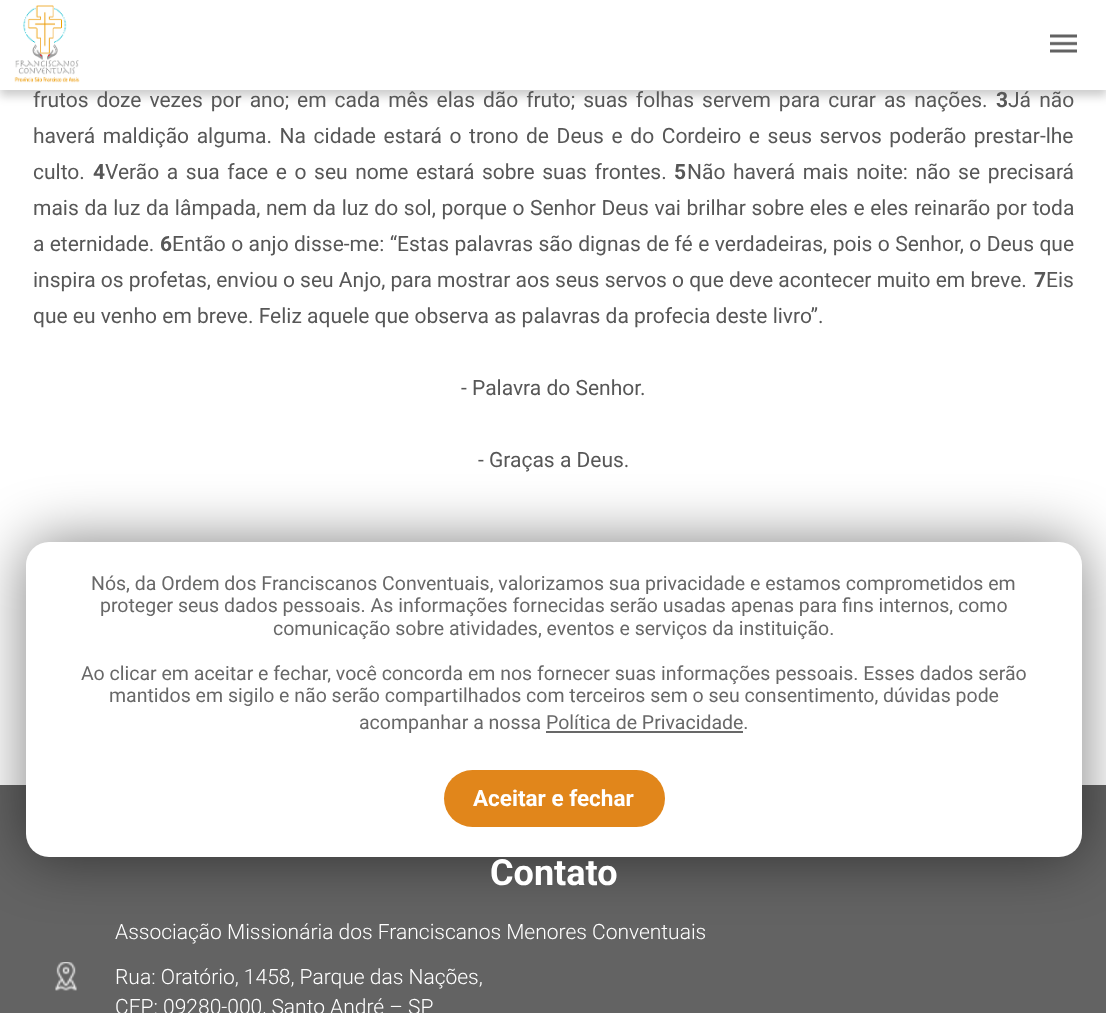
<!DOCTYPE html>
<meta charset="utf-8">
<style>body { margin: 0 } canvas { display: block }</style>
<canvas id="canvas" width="1106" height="1013"></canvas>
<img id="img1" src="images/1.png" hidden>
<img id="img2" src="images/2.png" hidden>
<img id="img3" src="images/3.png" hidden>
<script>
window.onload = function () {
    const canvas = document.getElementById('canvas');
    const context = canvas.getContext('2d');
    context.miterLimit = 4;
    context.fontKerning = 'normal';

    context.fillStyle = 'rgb(255, 255, 255)';
    context.fillRect(0, 0, 1106, 1013);
    context.fillStyle = 'rgba(0, 0, 0, 0.2)';
    context.filter = 'blur(5px)';
    context.beginPath();
    context.rect(0, 6, 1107, 90);
    context.fill();
    context.filter = 'none';
    context.fillStyle = 'rgb(255, 255, 255)';
    context.fillRect(0, 0, 1106, 90);
    context.drawImage(document.getElementById('img1'), 14, 5, 66, 78);
    context.drawImage(document.getElementById('img2'), 1050, 34, 27, 19);
    context.fillStyle = 'rgb(99, 99, 99)';
    context.fillRect(0, 785, 1106, 228);
    context.fillStyle = 'rgba(0, 0, 0, 0.5)';
    context.filter = 'blur(30px)';
    context.beginPath();
    context.roundRect(26, 542, 1056, 315, 23);
    context.fill();
    context.filter = 'none';
    context.fillStyle = 'rgb(255, 255, 255)';
    context.beginPath();
    context.roundRect(26, 542, 1056, 315, 23);
    context.fill();
    context.fillStyle = 'rgb(104, 104, 104)';
    context.fillRect(546, 731, 197, 2);
    context.fillStyle = 'rgb(225, 134, 27)';
    context.beginPath();
    context.roundRect(444, 770, 221, 57, 28.5);
    context.fill();
    context.drawImage(document.getElementById('img3'), 55, 962, 22, 29);
    context.wordSpacing = '2.75px';
    context.font = '21px Roboto';
    context.fillStyle = 'rgb(87, 87, 87)';
    context.fillText('frutos doze vezes por ano; em cada mês elas dão fruto; suas folhas servem para curar as nações.', 33, 107);
    context.wordSpacing = '0px';
    context.font = 'bold 21px Roboto';
    context.fillText('3', 996, 107);
    context.wordSpacing = '3px';
    context.font = '21px Roboto';
    context.fillText('Já não', 1008, 107);
    context.wordSpacing = '2.4px';
    context.fillText('haverá maldição alguma. Na cidade estará o trono de Deus e do Cordeiro e seus servos poderão prestar-lhe', 33, 143);
    context.wordSpacing = '0px';
    context.fillText('culto.', 33, 179);
    context.font = 'bold 21px Roboto';
    context.fillText('4', 93, 179);
    context.wordSpacing = '2.4px';
    context.font = '21px Roboto';
    context.fillText('Verão a sua face e o seu nome estará sobre suas frontes.', 105, 179);
    context.wordSpacing = '0px';
    context.font = 'bold 21px Roboto';
    context.fillText('5', 674, 179);
    context.wordSpacing = '2.4px';
    context.font = '21px Roboto';
    context.fillText('Não haverá mais noite: não se precisará', 687, 179);
    context.wordSpacing = '0.4px';
    context.fillText('mais da luz da lâmpada, nem da luz do sol, porque o Senhor Deus vai brilhar sobre eles e eles reinarão por toda', 33, 215);
    context.wordSpacing = '0px';
    context.fillText('a eternidade.', 33, 251);
    context.font = 'bold 21px Roboto';
    context.fillText('6', 160, 251);
    context.wordSpacing = '0.2px';
    context.font = '21px Roboto';
    context.fillText('Então o anjo disse-me: “Estas palavras são dignas de fé e verdadeiras, pois o Senhor, o Deus que', 172, 251);
    context.wordSpacing = '0px';
    context.fillText('inspira os profetas, enviou o seu Anjo, para mostrar aos seus servos o que deve acontecer muito em breve.', 33, 287);
    context.font = 'bold 21px Roboto';
    context.fillText('7', 1034, 287);
    context.font = '21px Roboto';
    context.fillText('Eis', 1046, 287);
    context.fillText('que eu venho em breve. Feliz aquele que observa as palavras da profecia deste livro”.', 33, 323);
    context.fillText('- Palavra do Senhor.', 461, 395);
    context.fillText('- Graças a Deus.', 478, 467);
    context.font = '19.5px Roboto';
    context.fillStyle = 'rgb(104, 104, 104)';
    context.fillText('Nós, da Ordem dos Franciscanos Conventuais, valorizamos sua privacidade e estamos comprometidos em', 91, 590);
    context.fillText('proteger seus dados pessoais. As informações fornecidas serão usadas apenas para fins internos, como', 100, 612);
    context.fillText('comunicação sobre atividades, eventos e serviços da instituição.', 273, 635);
    context.fillText('Ao clicar em aceitar e fechar, você concorda em nos fornecer suas informações pessoais. Esses dados serão', 81, 680);
    context.fillText('mantidos em sigilo e não serão compartilhados com terceiros sem o seu consentimento, dúvidas pode', 109, 702);
    context.fillText('acompanhar a nossa Política de Privacidade.', 359, 729);
    context.font = 'bold 22.5px Roboto';
    context.fillStyle = 'rgb(255, 255, 255)';
    context.fillText('Aceitar e fechar', 473, 806);
    context.font = 'bold 36px Roboto';
    context.fillText('Contato', 490, 885);
    context.font = '300 21px Roboto';
    context.fillText('Associação Missionária dos Franciscanos Menores Conventuais', 115, 939);
    context.fillText('Rua: Oratório, 1458, Parque das Nações,', 115, 984);
    context.fillText('CEP: 09280-000, Santo André – SP', 115, 1014);
};
</script>
